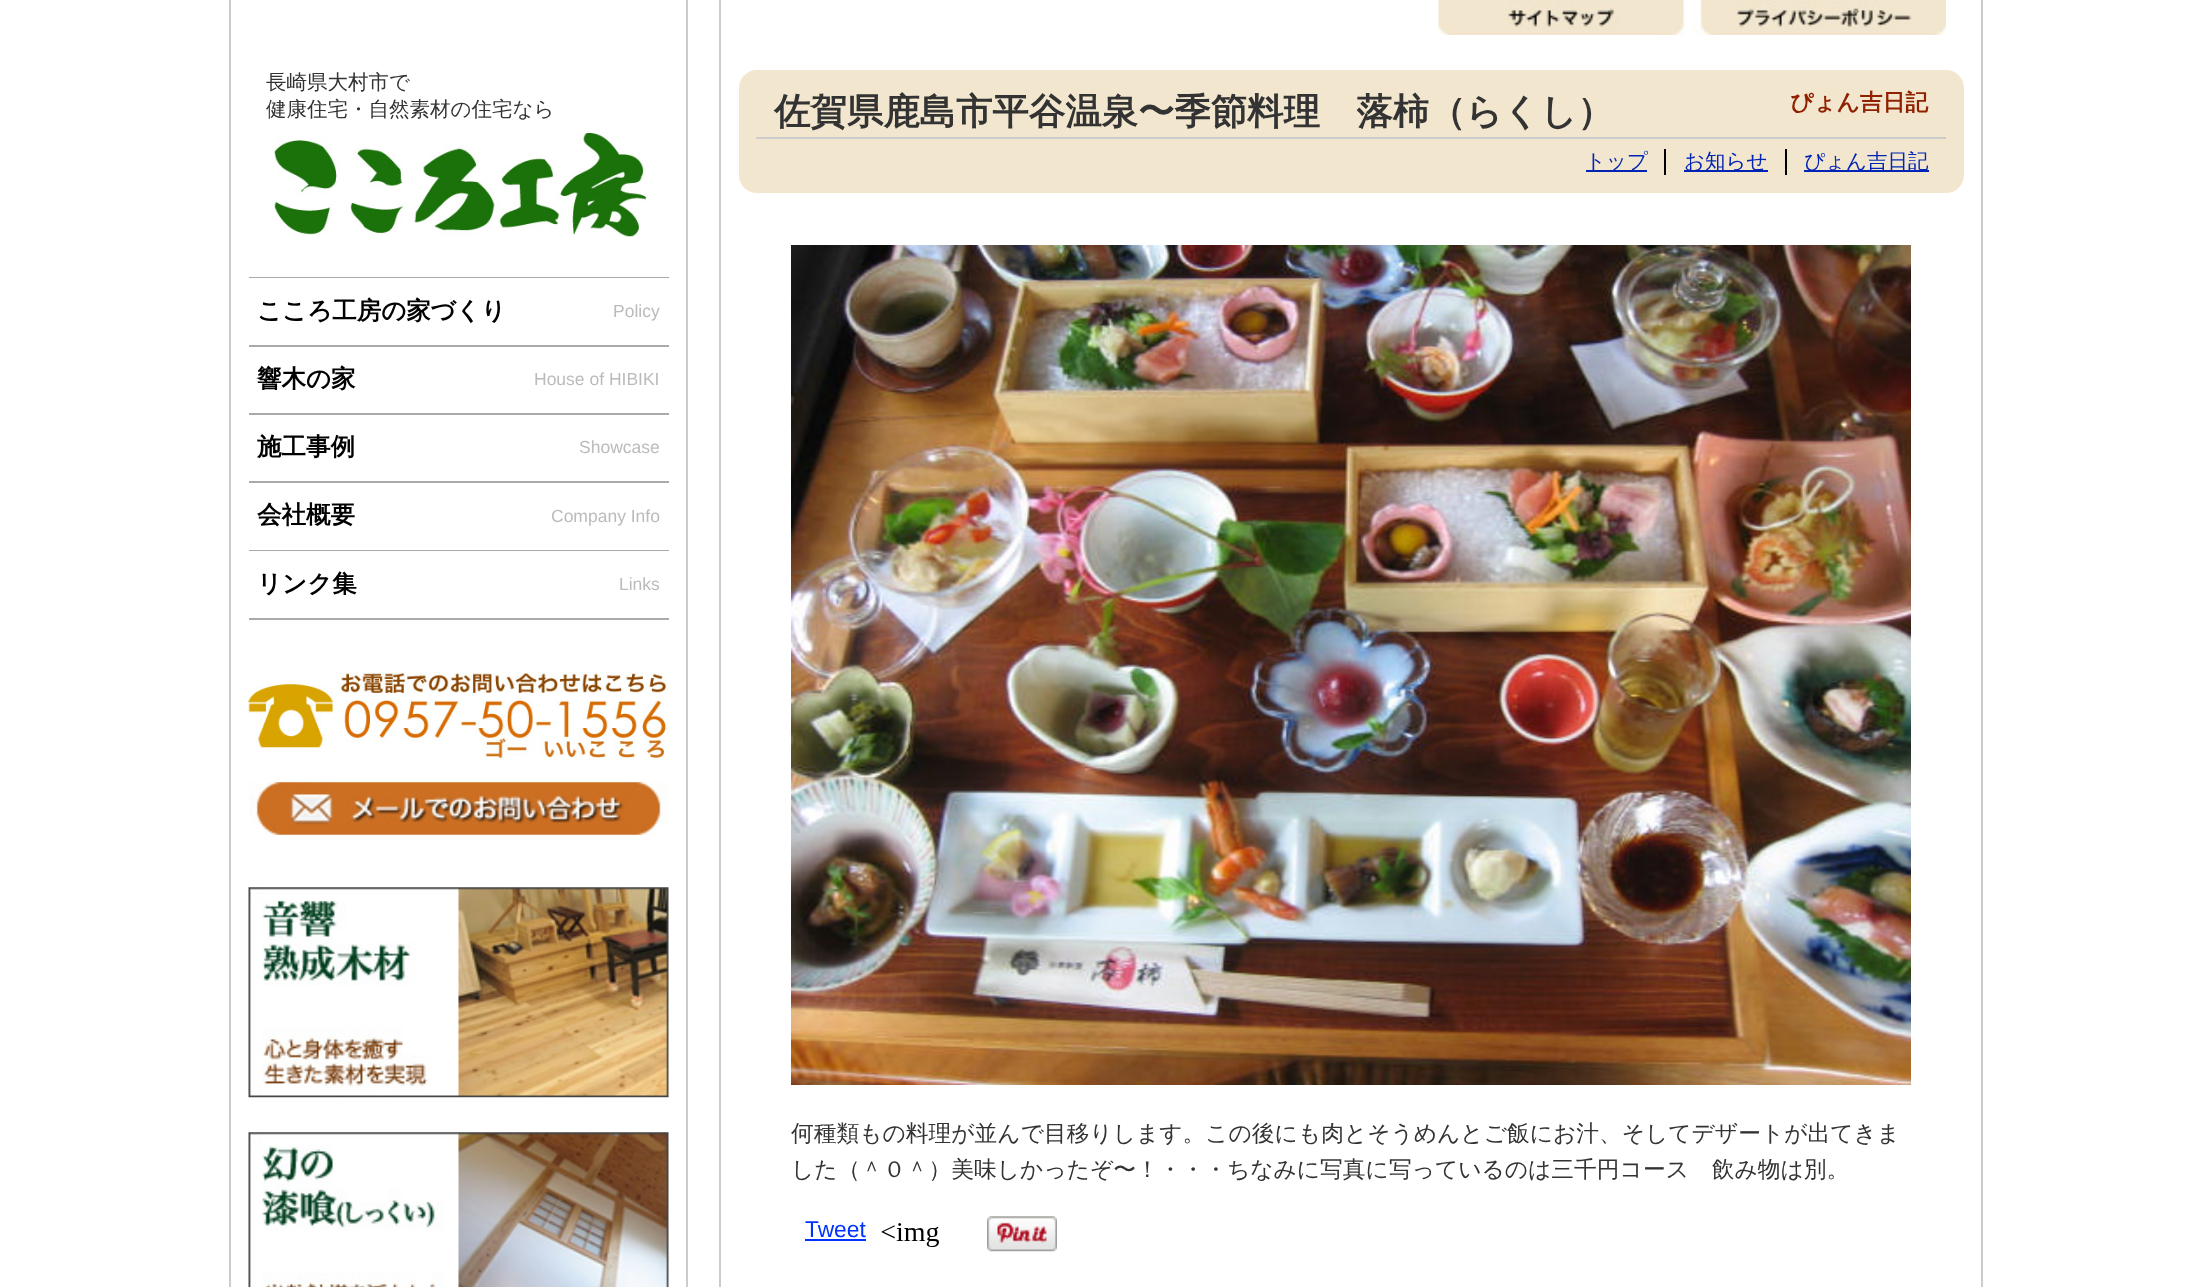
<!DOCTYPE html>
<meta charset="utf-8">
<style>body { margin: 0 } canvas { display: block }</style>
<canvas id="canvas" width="2212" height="1287"></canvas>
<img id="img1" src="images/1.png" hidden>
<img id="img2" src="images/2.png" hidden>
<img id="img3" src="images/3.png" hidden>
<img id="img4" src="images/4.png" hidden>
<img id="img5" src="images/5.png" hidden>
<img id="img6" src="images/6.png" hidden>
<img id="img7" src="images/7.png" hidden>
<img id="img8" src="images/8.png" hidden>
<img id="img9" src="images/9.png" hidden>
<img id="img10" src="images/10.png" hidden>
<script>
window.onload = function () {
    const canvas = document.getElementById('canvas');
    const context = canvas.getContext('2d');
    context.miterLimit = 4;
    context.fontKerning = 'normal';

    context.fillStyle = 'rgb(255, 255, 255)';
    context.fillRect(0, 0, 2212, 1287);
    context.fillStyle = 'rgb(204, 204, 204)';
    context.fillRect(1981, 0, 2, 1287);
    context.fillRect(229, 0, 2, 1287);
    context.fillRect(686, 0, 2, 1287);
    context.drawImage(document.getElementById('img1'), 271, 131, 376, 106);
    context.fillStyle = 'rgb(170, 170, 170)';
    context.fillRect(249, 277, 420, 1);
    context.fillRect(249, 345, 420, 2);
    context.fillRect(249, 413, 420, 2);
    context.fillRect(249, 481, 420, 2);
    context.fillRect(249, 550, 420, 1);
    context.fillRect(249, 618, 420, 2);
    context.drawImage(document.getElementById('img2'), 248, 672, 421, 88);
    context.drawImage(document.getElementById('img3'), 249, 782, 419, 53);
    context.drawImage(document.getElementById('img4'), 248, 887, 421, 211);
    context.drawImage(document.getElementById('img5'), 248, 1132, 421, 155);
    context.fillStyle = 'rgb(204, 204, 204)';
    context.fillRect(719, 0, 2, 1287);
    context.drawImage(document.getElementById('img6'), 1438, 0, 248, 35);
    context.drawImage(document.getElementById('img7'), 1692, 0, 254, 35);
    context.fillStyle = 'rgb(242, 231, 206)';
    context.beginPath();
    context.roundRect(739, 70, 1225, 123, 18);
    context.fill();
    context.fillStyle = 'rgb(204, 204, 204)';
    context.fillRect(756, 137, 1190, 2);
    context.fillStyle = 'rgb(0, 36, 181)';
    context.fillRect(1586, 170, 61, 2);
    context.fillStyle = 'rgb(0, 0, 0)';
    context.fillRect(1664, 149, 2, 26);
    context.fillStyle = 'rgb(0, 36, 181)';
    context.fillRect(1684, 170, 84, 2);
    context.fillStyle = 'rgb(0, 0, 0)';
    context.fillRect(1785, 149, 2, 26);
    context.fillStyle = 'rgb(0, 36, 181)';
    context.fillRect(1804, 170, 125, 2);
    context.drawImage(document.getElementById('img8'), 791, 245, 1120, 840);
    context.fillStyle = 'rgb(0, 51, 255)';
    context.fillRect(805, 1239, 61, 2);
    context.drawImage(document.getElementById('img9'), 881, 1223, 58, 24);
    context.drawImage(document.getElementById('img10'), 987, 1216, 70, 36);
    context.font = '500 20.5px WenQuanYi Zen Hei';
    context.fillStyle = 'rgb(51, 51, 51)';
    context.fillText('長崎県大村市で', 266, 89);
    context.fillText('健康住宅・自然素材の住宅なら', 266, 116);
    context.font = 'bold 24.5px WenQuanYi Zen Hei';
    context.fillStyle = 'rgb(0, 0, 0)';
    context.fillText('こころ工房の家づくり', 257, 319);
    context.font = '17.5px Liberation Sans';
    context.fillStyle = 'rgb(187, 187, 187)';
    context.fillText('Policy', 613, 317);
    context.font = 'bold 24.5px WenQuanYi Zen Hei';
    context.fillStyle = 'rgb(0, 0, 0)';
    context.fillText('響木の家', 257, 387);
    context.font = '17.5px Liberation Sans';
    context.fillStyle = 'rgb(187, 187, 187)';
    context.fillText('House of HIBIKI', 534, 385);
    context.font = 'bold 24.5px WenQuanYi Zen Hei';
    context.fillStyle = 'rgb(0, 0, 0)';
    context.fillText('施工事例', 257, 455);
    context.font = '17.5px Liberation Sans';
    context.fillStyle = 'rgb(187, 187, 187)';
    context.fillText('Showcase', 579, 453);
    context.font = 'bold 24.5px WenQuanYi Zen Hei';
    context.fillStyle = 'rgb(0, 0, 0)';
    context.fillText('会社概要', 257, 523);
    context.font = '17.5px Liberation Sans';
    context.fillStyle = 'rgb(187, 187, 187)';
    context.fillText('Company Info', 551, 522);
    context.font = 'bold 24.5px WenQuanYi Zen Hei';
    context.fillStyle = 'rgb(0, 0, 0)';
    context.fillText('リンク集', 257, 592);
    context.font = '17.5px Liberation Sans';
    context.fillStyle = 'rgb(187, 187, 187)';
    context.fillText('Links', 619, 590);
    context.font = 'bold 36.4px WenQuanYi Zen Hei';
    context.fillStyle = 'rgb(51, 51, 51)';
    context.fillText('佐賀県鹿島市平谷温泉〜季節料理　落柿（らくし）', 774, 124);
    context.font = 'bold 22.75px WenQuanYi Zen Hei';
    context.fillStyle = 'rgb(144, 33, 0)';
    context.fillText('ぴょん吉日記', 1790, 110);
    context.font = '500 20.5px WenQuanYi Zen Hei';
    context.fillStyle = 'rgb(0, 36, 181)';
    context.fillText('トップ', 1585, 168);
    context.fillText('お知らせ', 1684, 168);
    context.fillText('ぴょん吉日記', 1804, 168);
    context.font = '500 22.75px WenQuanYi Zen Hei';
    context.fillStyle = 'rgb(51, 51, 51)';
    context.fillText('何種類もの料理が並んで目移りします。この後にも肉とそうめんとご飯にお汁、そしてデザートが出てきま', 791, 1141);
    context.fillText('した（＾０＾）美味しかったぞ〜！・・・ちなみに写真に写っているのは三千円コース　飲み物は別。', 791, 1177);
    context.font = '22.75px Liberation Sans';
    context.fillStyle = 'rgb(0, 51, 255)';
    context.fillText('Tweet', 805, 1237);
};
</script>
